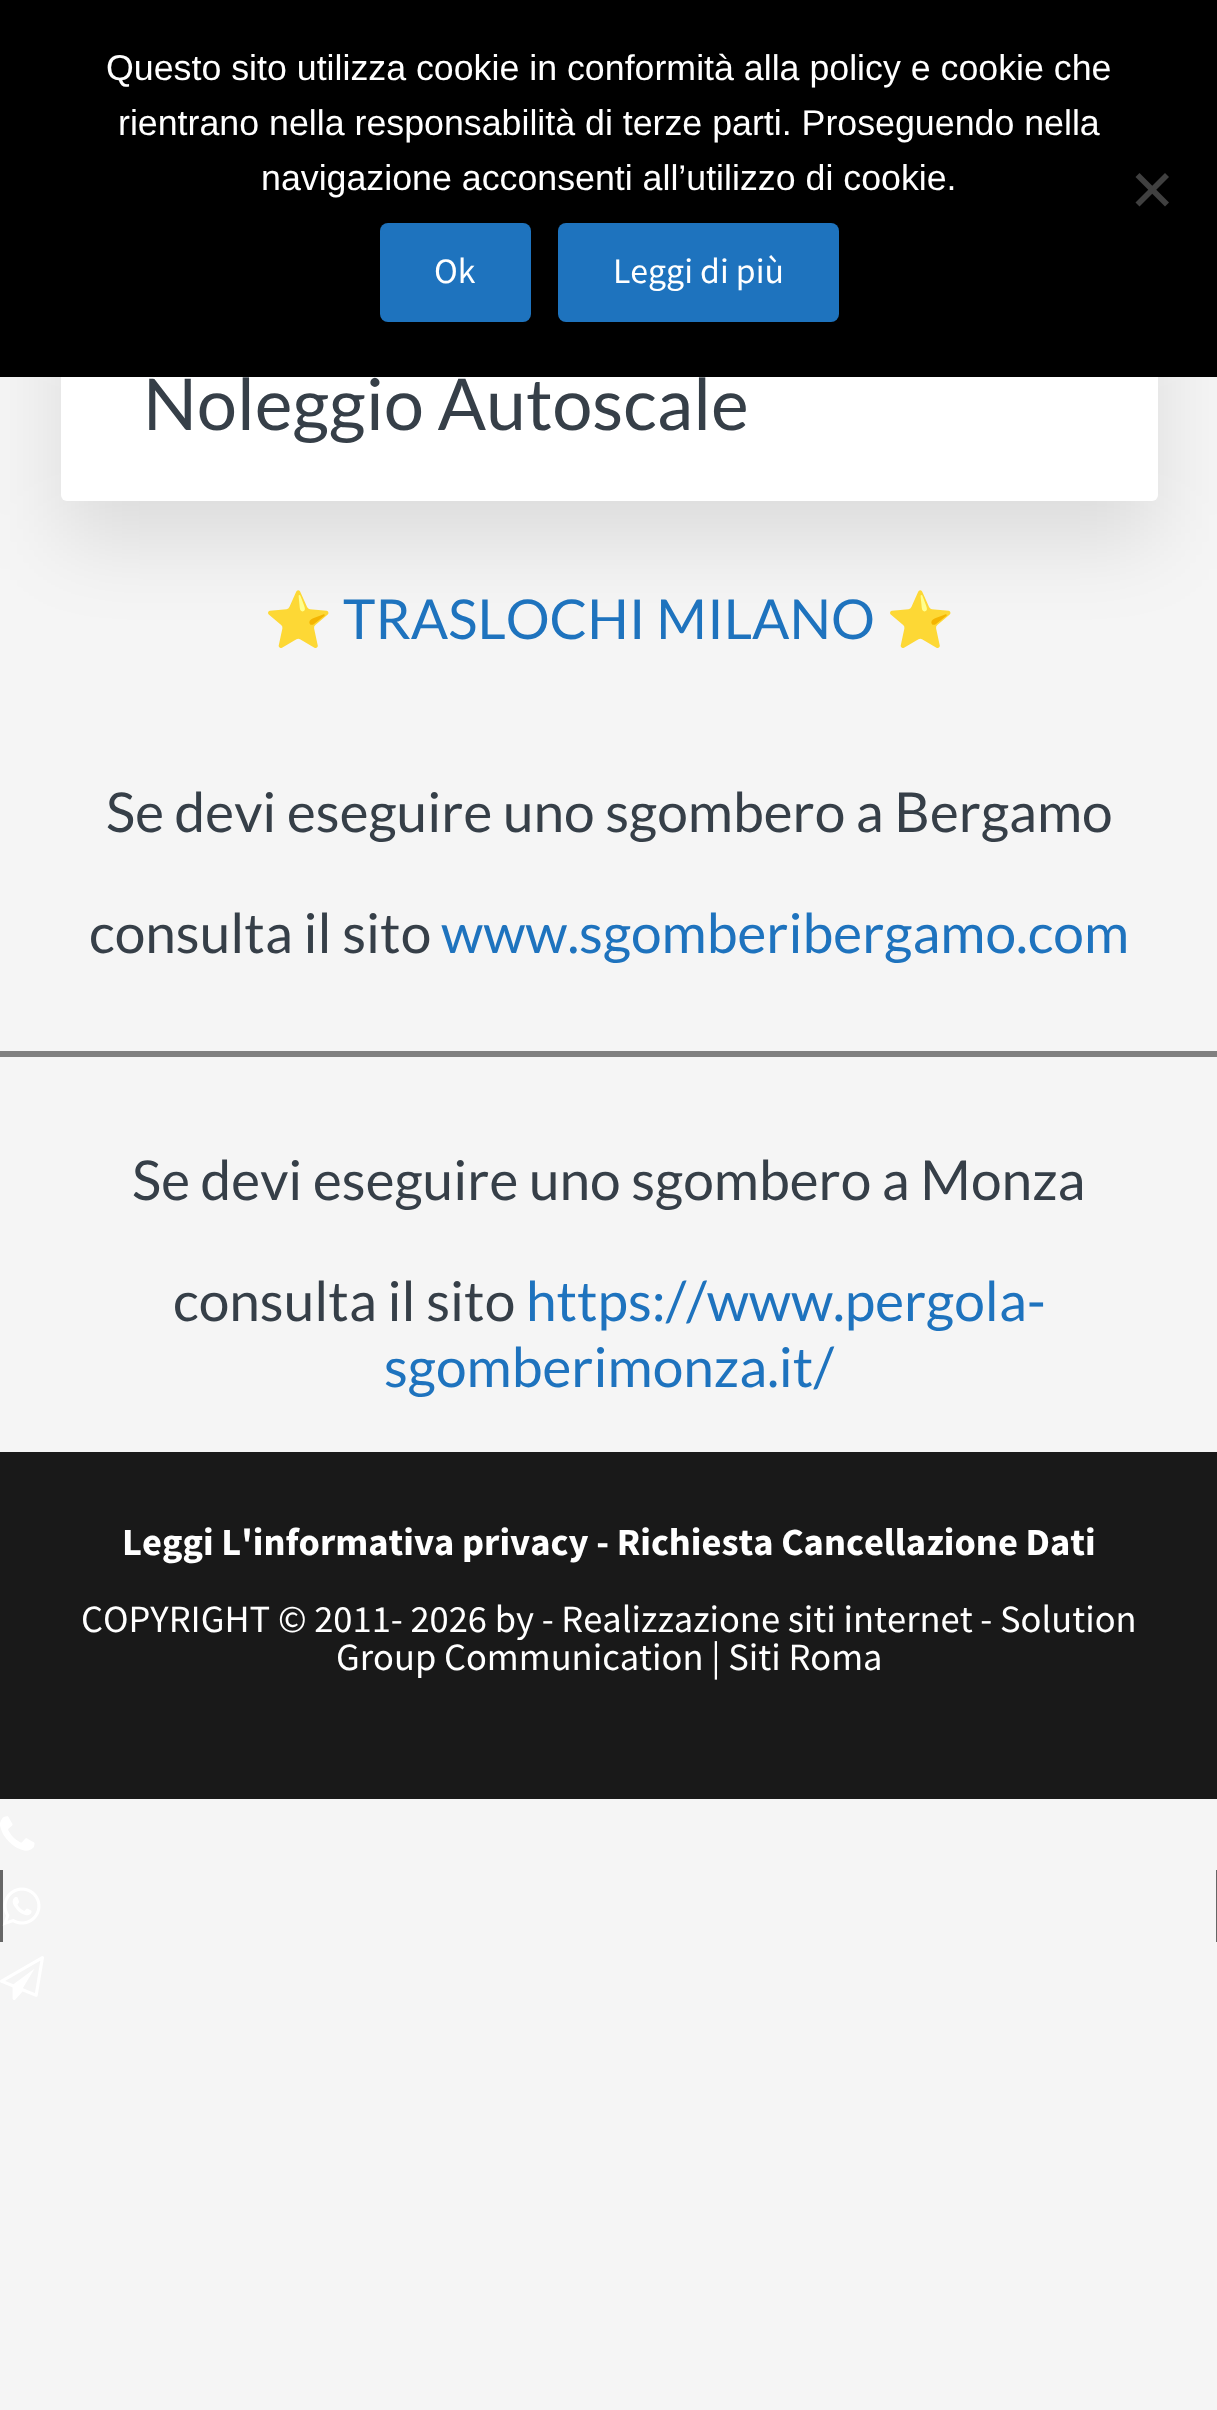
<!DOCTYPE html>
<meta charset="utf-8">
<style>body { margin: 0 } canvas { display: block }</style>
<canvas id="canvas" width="1217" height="2410"></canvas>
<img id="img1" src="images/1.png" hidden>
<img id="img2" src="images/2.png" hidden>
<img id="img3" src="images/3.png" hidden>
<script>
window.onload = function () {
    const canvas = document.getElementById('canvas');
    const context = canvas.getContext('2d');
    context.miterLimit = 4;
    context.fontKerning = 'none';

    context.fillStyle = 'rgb(245, 245, 245)';
    context.fillRect(0, 0, 1217, 2410);
    context.fillStyle = 'rgba(0, 0, 0, 0.1)';
    context.filter = 'blur(41px)';
    context.beginPath();
    context.roundRect(61, 319, 1097, 223, 6);
    context.fill();
    context.filter = 'none';
    context.fillStyle = 'rgb(255, 255, 255)';
    context.beginPath();
    context.roundRect(61, 278, 1097, 223, 6);
    context.fill();
    context.fillStyle = 'rgb(0, 0, 0)';
    context.fillRect(0, 0, 1217, 377);
    context.fillStyle = 'rgb(64, 64, 64)';
    context.beginPath();
    context.moveTo(1165, 173);
    context.lineTo(1169, 177);
    context.lineTo(1139.5, 206.5);
    context.lineTo(1135.5, 202.5);
    context.closePath();
    context.fill();
    context.beginPath();
    context.moveTo(1135.5, 177);
    context.lineTo(1139.5, 173);
    context.lineTo(1169, 202.5);
    context.lineTo(1165, 206.5);
    context.closePath();
    context.fill();
    context.fillStyle = 'rgb(30, 115, 190)';
    context.beginPath();
    context.roundRect(380, 223, 151, 99, 8);
    context.fill();
    context.beginPath();
    context.roundRect(558, 223, 281, 99, 8);
    context.fill();
    context.fillStyle = 'rgb(128, 128, 128)';
    context.fillRect(0, 1051, 1217, 6);
    context.fillStyle = 'rgb(25, 25, 25)';
    context.fillRect(0, 1452, 1217, 347);
    context.drawImage(document.getElementById('img1'), 0, 1816, 35, 35);
    context.fillStyle = 'rgb(102, 102, 102)';
    context.fillRect(1216, 1870, 1, 72);
    context.fillRect(0, 1870, 3, 72);
    context.drawImage(document.getElementById('img2'), 2, 1887, 39, 39);
    context.drawImage(document.getElementById('img3'), 0, 1956, 44, 44);
    context.font = '35.75px Liberation Sans';
    context.fillStyle = 'rgb(255, 255, 255)';
    context.fillText('Questo sito utilizza cookie in conformità alla policy e cookie che', 106, 80);
    context.fillText('rientrano nella responsabilità di terze parti. Proseguendo nella', 118, 135);
    context.fillText('navigazione acconsenti all’utilizzo di cookie.', 261, 190);
    context.font = '35.75px Source Sans Pro';
    context.fillText('Ok', 434, 283);
    context.fillText('Leggi di più', 613, 283);
    context.font = '71.5px Lato';
    context.fillStyle = 'rgb(54, 63, 72)';
    context.fillText('Noleggio Autoscale', 143, 430);
    context.font = '55px Noto Color Emoji';
    context.fillStyle = 'rgb(30, 115, 190)';
    context.fillText('⭐', 264, 639);
    context.font = '55px Lato';
    context.fillText('TRASLOCHI MILANO', 343, 639);
    context.font = '55px Noto Color Emoji';
    context.fillText('⭐', 886, 639);
    context.font = '55px Lato';
    context.fillStyle = 'rgb(54, 63, 72)';
    context.fillText('Se devi eseguire uno sgombero a Bergamo', 106, 832);
    context.fillText('consulta il sito', 89, 953);
    context.fillStyle = 'rgb(30, 115, 190)';
    context.fillText('www.sgomberibergamo.com', 441, 953);
    context.fillStyle = 'rgb(54, 63, 72)';
    context.fillText('Se devi eseguire uno sgombero a Monza', 132, 1200);
    context.fillText('consulta il sito', 173, 1321);
    context.fillStyle = 'rgb(30, 115, 190)';
    context.fillText('https://www.pergola-', 526, 1321);
    context.fillText('sgomberimonza.it/', 384, 1387);
    context.font = 'bold 38.5px Source Sans Pro';
    context.fillStyle = 'rgb(255, 255, 255)';
    context.fillText('Leggi L\'informativa', 122, 1555);
    context.fillText('privacy - Richiesta Cancellazione Dati', 462, 1555);
    context.font = '38.5px Source Sans Pro';
    context.fillText('COPYRIGHT © 2011- 2026 by - Realizzazione siti internet - Solution', 81, 1632);
    context.fillText('Group Communication | Siti Roma', 336, 1670);
};
</script>
